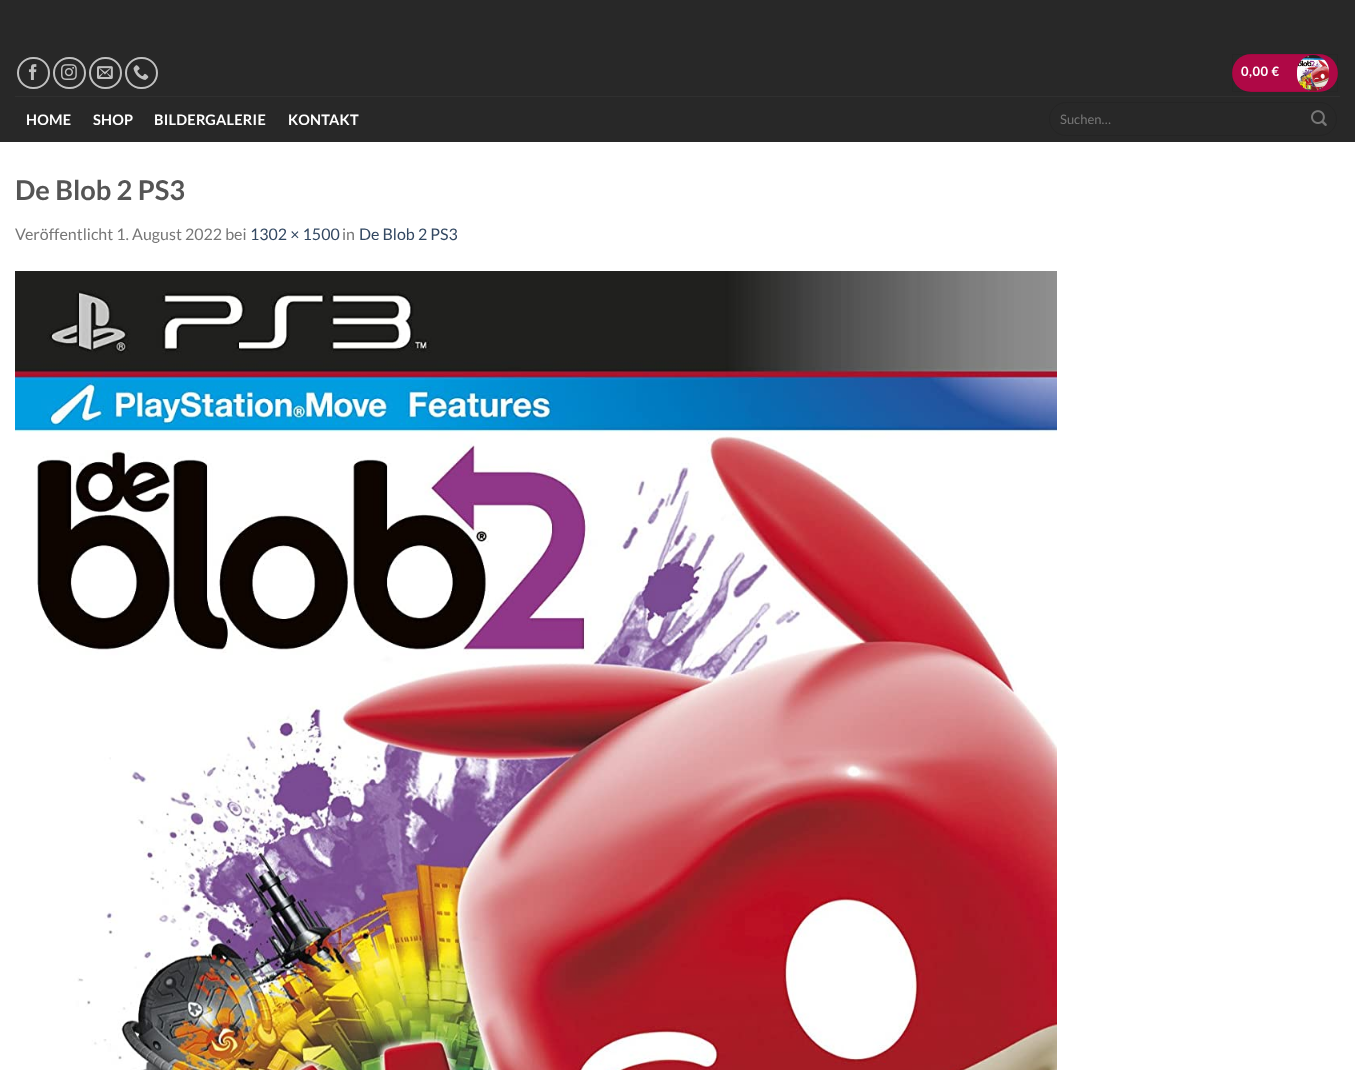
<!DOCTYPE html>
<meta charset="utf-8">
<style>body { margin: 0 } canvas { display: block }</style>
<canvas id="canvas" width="1355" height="1070"></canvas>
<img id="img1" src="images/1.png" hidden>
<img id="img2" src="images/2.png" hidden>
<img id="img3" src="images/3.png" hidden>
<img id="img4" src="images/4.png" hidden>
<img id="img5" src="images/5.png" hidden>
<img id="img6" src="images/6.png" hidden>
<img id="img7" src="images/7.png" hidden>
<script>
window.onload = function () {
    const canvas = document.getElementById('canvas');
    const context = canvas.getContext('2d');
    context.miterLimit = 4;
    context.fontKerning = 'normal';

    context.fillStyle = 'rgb(255, 255, 255)';
    context.fillRect(0, 0, 1355, 1070);
    context.fillStyle = 'rgb(40, 40, 40)';
    context.fillRect(0, 0, 1355, 142);
    context.beginPath();
    context.roundRect(18, 58, 31, 30, 15);
    context.strokeStyle = 'rgb(192, 192, 192)';
    context.lineWidth = 2;
    context.stroke();
    context.drawImage(document.getElementById('img1'), 28, 64, 9, 16);
    context.beginPath();
    context.roundRect(54, 58, 31, 30, 15);
    context.stroke();
    context.drawImage(document.getElementById('img2'), 61, 64, 16, 16);
    context.beginPath();
    context.roundRect(90, 58, 31, 30, 15);
    context.stroke();
    context.drawImage(document.getElementById('img3'), 97, 66, 16, 13);
    context.beginPath();
    context.roundRect(126, 58, 31, 30, 15);
    context.stroke();
    context.drawImage(document.getElementById('img4'), 133, 65, 16, 15);
    context.fillStyle = 'rgb(175, 8, 70)';
    context.beginPath();
    context.roundRect(1232, 54, 106, 38, 19);
    context.fill();
    context.strokeStyle = 'rgba(0, 0, 0, 0.05)';
    context.lineWidth = 1;
    context.strokeRect(1232.5, 54.5, 105, 37);
    context.drawImage(document.getElementById('img5'), 1297, 55, 32, 36);
    context.fillStyle = 'rgb(48, 48, 48)';
    context.fillRect(15, 96, 1325, 1);
    context.beginPath();
    context.roundRect(1049.5, 102.5, 287, 33, 16.5);
    context.strokeStyle = 'rgb(36, 36, 36)';
    context.stroke();
    context.drawImage(document.getElementById('img6'), 1311, 110, 16, 16);
    context.drawImage(document.getElementById('img7'), 15, 271, 1042, 799);
    context.letterSpacing = '0.5px';
    context.font = 'bold 13px Lato';
    context.fillStyle = 'rgb(255, 255, 255)';
    context.fillText('0,00 €', 1241, 76);
    context.letterSpacing = '0.25px';
    context.font = 'bold 14.5px Lato';
    context.fillText('HOME', 26, 125);
    context.fillText('SHOP', 93, 125);
    context.fillText('BILDERGALERIE', 154, 125);
    context.fillText('KONTAKT', 288, 125);
    context.letterSpacing = '0px';
    context.font = '13px Lato';
    context.fillStyle = 'rgb(119, 119, 119)';
    context.fillText('Suchen…', 1060, 124);
    context.font = 'bold 27.25px Lato';
    context.fillStyle = 'rgb(85, 85, 85)';
    context.fillText('De Blob 2 PS3', 15, 200);
    context.font = '16px Lato';
    context.fillStyle = 'rgb(119, 119, 119)';
    context.fillText('Veröffentlicht 1. August 2022 bei', 15, 240);
    context.fillStyle = 'rgb(51, 72, 98)';
    context.fillText('1302 × 1500', 250, 240);
    context.fillStyle = 'rgb(119, 119, 119)';
    context.fillText('in', 342, 240);
    context.fillStyle = 'rgb(51, 72, 98)';
    context.fillText('De Blob 2 PS3', 359, 240);
};
</script>
